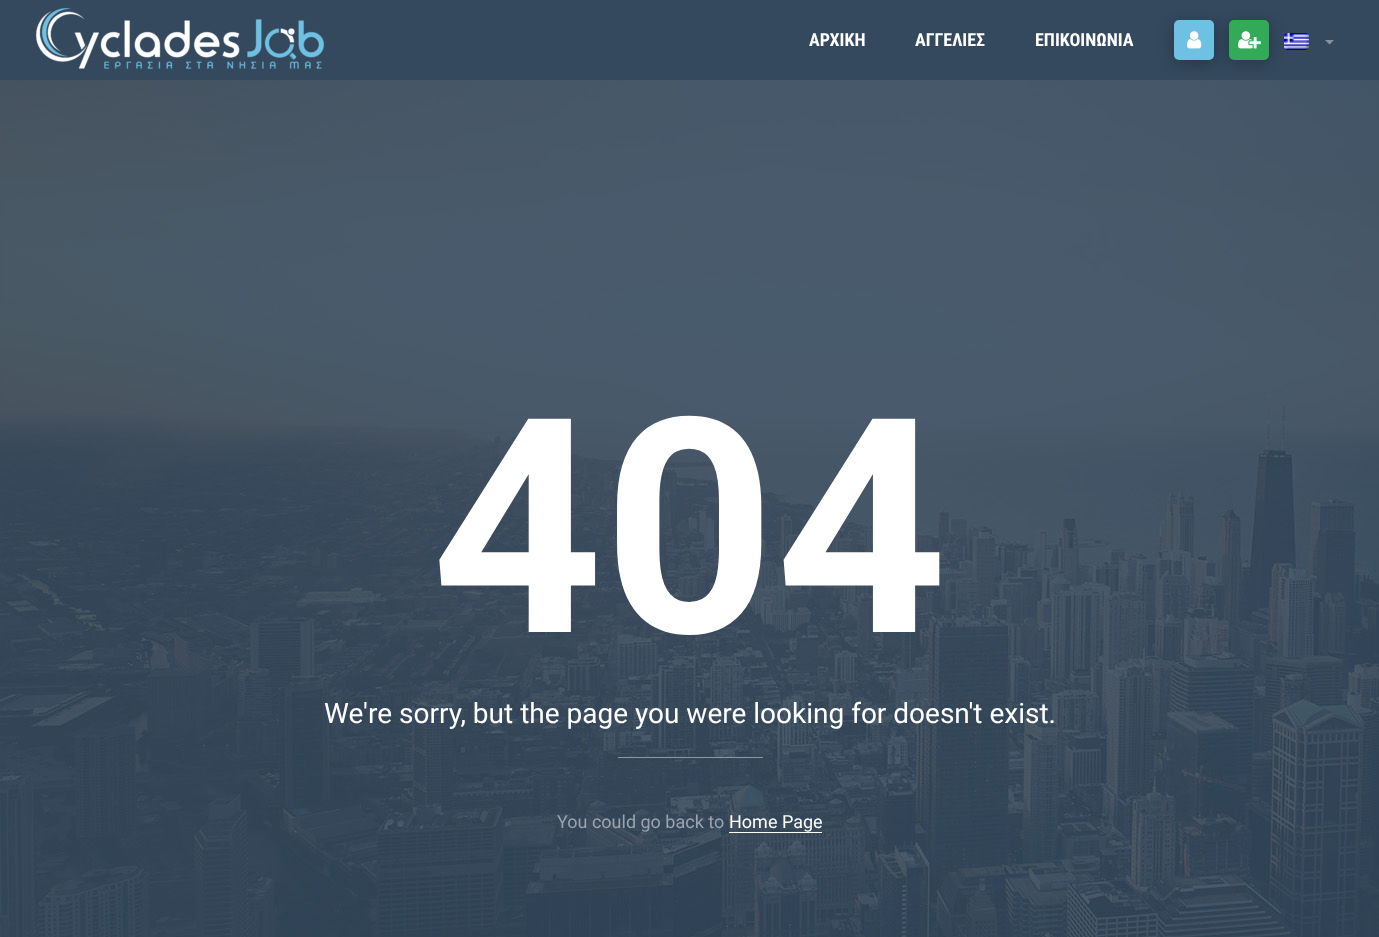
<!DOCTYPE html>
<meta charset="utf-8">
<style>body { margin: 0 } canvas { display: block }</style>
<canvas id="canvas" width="1379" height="937"></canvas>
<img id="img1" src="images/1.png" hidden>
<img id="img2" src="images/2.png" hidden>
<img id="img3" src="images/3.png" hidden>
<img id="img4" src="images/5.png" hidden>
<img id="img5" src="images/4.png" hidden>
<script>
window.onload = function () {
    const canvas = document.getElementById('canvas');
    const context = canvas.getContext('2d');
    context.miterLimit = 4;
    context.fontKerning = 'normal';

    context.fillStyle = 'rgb(255, 255, 255)';
    context.fillRect(0, 0, 1379, 937);
    context.drawImage(document.getElementById('img1'), 0, 80, 1379, 857);
    context.fillStyle = 'rgb(52, 73, 94)';
    context.fillRect(0, 0, 1379, 80);
    context.drawImage(document.getElementById('img2'), 35, 7, 290, 62);
    context.fillStyle = 'rgba(0, 0, 0, 0.25)';
    context.filter = 'blur(7.5px)';
    context.beginPath();
    context.roundRect(1174, 23, 40, 40, 5);
    context.fill();
    context.filter = 'none';
    context.fillStyle = 'rgb(110, 193, 227)';
    context.beginPath();
    context.roundRect(1174, 20, 40, 40, 5);
    context.fill();
    context.drawImage(document.getElementById('img3'), 1187, 31, 15, 18);
    context.drawImage(document.getElementById('img4'), 1284, 33, 25, 17);
    context.fillStyle = 'rgba(0, 0, 0, 0.25)';
    context.filter = 'blur(7.5px)';
    context.beginPath();
    context.roundRect(1229, 23, 40, 40, 5);
    context.fill();
    context.filter = 'none';
    context.fillStyle = 'rgb(51, 170, 88)';
    context.beginPath();
    context.roundRect(1229, 20, 40, 40, 5);
    context.fill();
    context.drawImage(document.getElementById('img5'), 1238, 31, 23, 18);
    context.fillStyle = 'rgb(133, 146, 158)';
    context.beginPath();
    context.moveTo(1325, 40);
    context.lineTo(1334, 40);
    context.lineTo(1329.5, 44.5);
    context.closePath();
    context.fill();
    context.fillStyle = 'rgb(143, 151, 160)';
    context.fillRect(618, 757, 145, 1);
    context.fillStyle = 'rgb(255, 255, 255)';
    context.fillRect(729, 832, 93, 1);
    context.font = 'bold 18px Roboto Condensed';
    context.fillText('ΑΡΧΙΚΗ', 809, 46);
    context.fillText('ΑΓΓΕΛΙΕΣ', 915, 46);
    context.fillText('ΕΠΙΚΟΙΝΩΝΙΑ', 1035, 46);
    context.font = 'bold 300px Roboto';
    context.fillText('404', 431, 632);
    context.font = '28px Roboto';
    context.fillText('We\'re sorry, but the page you were looking for doesn\'t exist.', 324, 723);
    context.font = '18px Roboto';
    context.fillStyle = 'rgb(155, 164, 173)';
    context.fillText('You could go back to', 557, 828);
    context.fillStyle = 'rgb(255, 255, 255)';
    context.fillText('Home Page', 729, 828);
};
</script>
